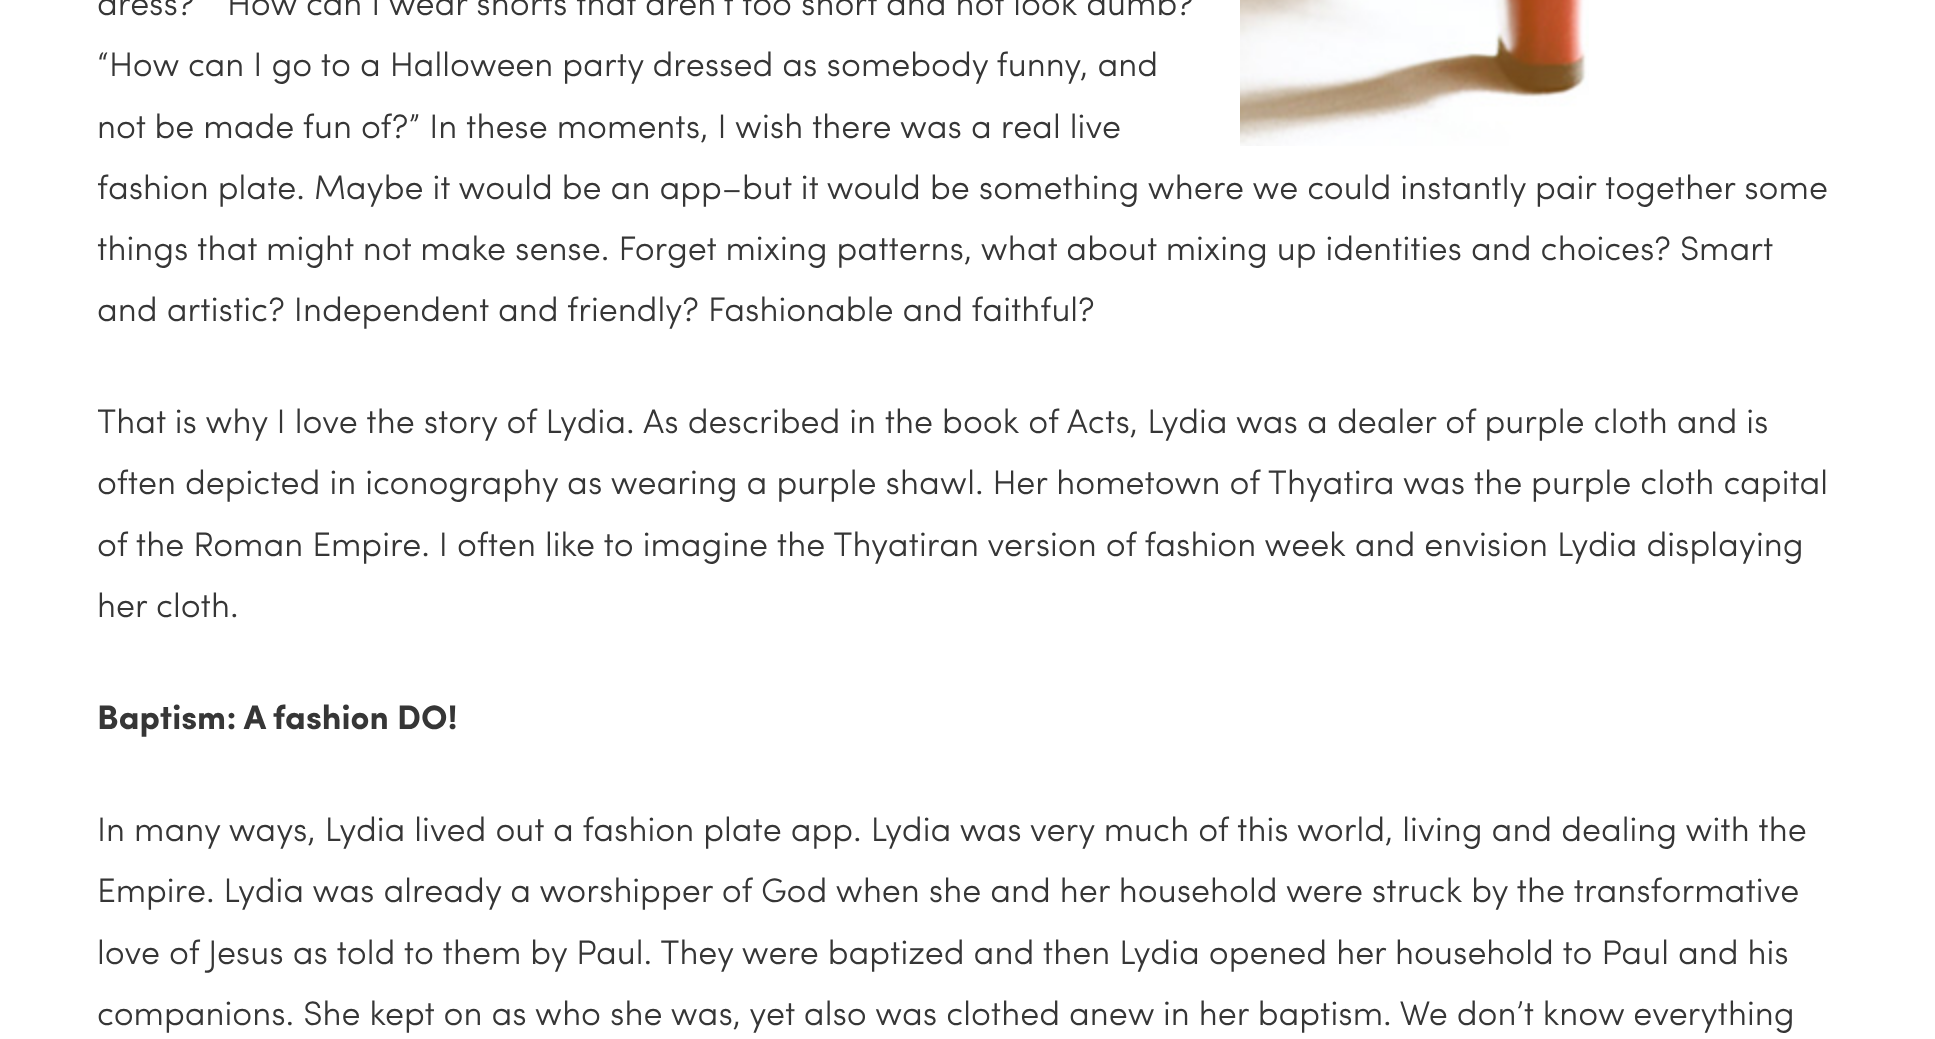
<!DOCTYPE html>
<meta charset="utf-8">
<style>body { margin: 0 } canvas { display: block }</style>
<canvas id="canvas" width="1935" height="1039"></canvas>
<img id="img1" src="images/1.png" hidden>
<script>
window.onload = function () {
    const canvas = document.getElementById('canvas');
    const context = canvas.getContext('2d');
    context.miterLimit = 4;
    context.fontKerning = 'normal';

    context.fillStyle = 'rgb(255, 255, 255)';
    context.fillRect(0, 0, 1935, 1039);
    context.drawImage(document.getElementById('img1'), 1240, 0, 349, 146);
    context.font = '300 34px Sofia';
    context.fillStyle = 'rgb(54, 54, 54)';
    context.fillText('dress?', 97, 15);
    context.fillText('How can I wear shorts that aren’t too short and not look dumb?', 227, 15);
    context.fillText('“How can I go to a Halloween party dressed as somebody funny, and', 97, 76);
    context.fillText('not be made fun of?” In these moments, I wish there was a real live', 97, 138);
    context.fillText('fashion plate. Maybe it would be an app–but it would be something where we could instantly pair together some', 97, 199);
    context.fillText('things that might not make sense. Forget mixing patterns, what about mixing up identities and choices? Smart', 97, 260);
    context.fillText('and artistic? Independent and friendly? Fashionable and faithful?', 97, 321);
    context.fillText('That is why I love the story of Lydia. As described in the book of Acts, Lydia was a dealer of purple cloth and is', 97, 433);
    context.fillText('often depicted in iconography as wearing a purple shawl. Her hometown of Thyatira was the purple cloth capital', 97, 494);
    context.fillText('of the Roman Empire. I often like to imagine the Thyatiran version of fashion week and envision Lydia displaying', 97, 556);
    context.fillText('her cloth.', 97, 617);
    context.font = 'bold 34px Sofia';
    context.fillText('Baptism: A fashion DO!', 97, 729);
    context.font = '300 34px Sofia';
    context.fillText('In many ways, Lydia lived out a fashion plate app. Lydia was very much of this world, living and dealing with the', 97, 841);
    context.fillText('Empire. Lydia was already a worshipper of God when she and her household were struck by the transformative', 97, 902);
    context.fillText('love of Jesus as told to them by Paul. They were baptized and then Lydia opened her household to Paul and his', 97, 964);
    context.fillText('companions. She kept on as who she was, yet also was clothed anew in her baptism. We don’t know everything', 97, 1025);
};
</script>
